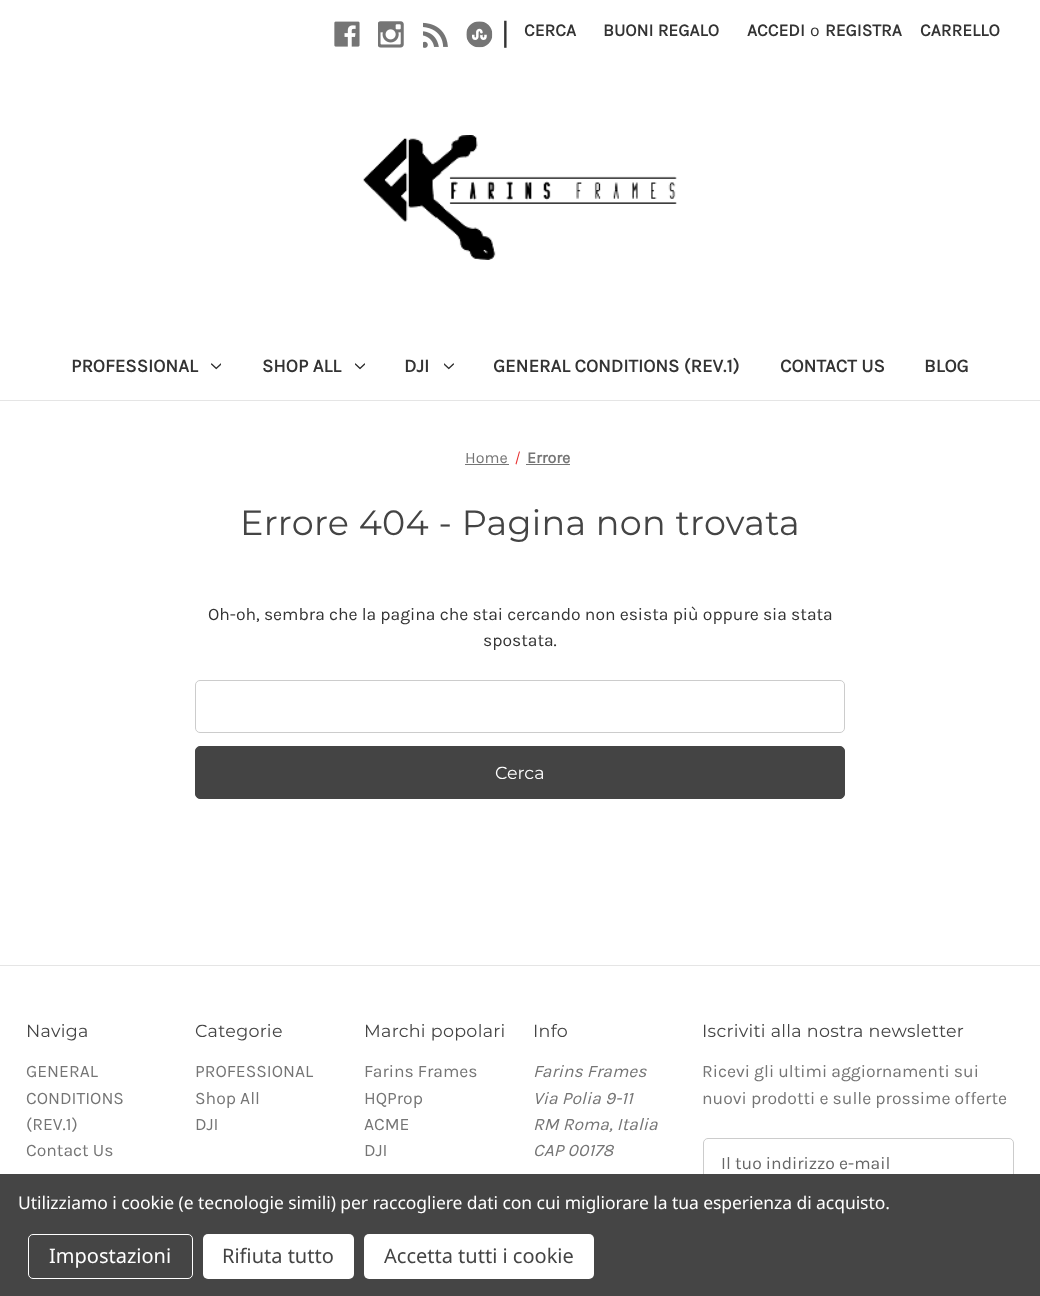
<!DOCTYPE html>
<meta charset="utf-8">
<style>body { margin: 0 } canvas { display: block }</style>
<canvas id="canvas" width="1040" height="1296"></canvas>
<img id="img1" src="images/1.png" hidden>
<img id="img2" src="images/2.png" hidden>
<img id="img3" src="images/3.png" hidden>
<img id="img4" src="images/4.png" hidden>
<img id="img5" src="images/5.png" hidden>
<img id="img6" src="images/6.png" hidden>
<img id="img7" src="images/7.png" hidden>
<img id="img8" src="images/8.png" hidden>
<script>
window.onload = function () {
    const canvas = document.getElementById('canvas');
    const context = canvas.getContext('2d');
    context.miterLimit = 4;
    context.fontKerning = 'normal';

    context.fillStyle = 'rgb(255, 255, 255)';
    context.fillRect(0, 0, 1040, 1296);
    context.fillStyle = 'rgb(229, 229, 229)';
    context.fillRect(0, 400, 1040, 1);
    context.drawImage(document.getElementById('img1'), 334, 21, 26, 26);
    context.drawImage(document.getElementById('img2'), 378, 21, 26, 27);
    context.drawImage(document.getElementById('img3'), 423, 22, 25, 26);
    context.drawImage(document.getElementById('img4'), 466, 21, 27, 27);
    context.drawImage(document.getElementById('img5'), 363, 135, 314, 125);
    context.drawImage(document.getElementById('img6'), 211, 363, 10, 7);
    context.drawImage(document.getElementById('img7'), 355, 363, 10, 7);
    context.drawImage(document.getElementById('img8'), 444, 363, 10, 7);
    context.fillStyle = 'rgb(117, 117, 117)';
    context.fillRect(465, 464, 44, 1);
    context.fillStyle = 'rgb(231, 44, 44)';
    context.beginPath();
    context.moveTo(519, 451.5);
    context.lineTo(520, 451.5);
    context.lineTo(516.5, 464.5);
    context.lineTo(515.5, 464);
    context.closePath();
    context.fill();
    context.fillStyle = 'rgb(117, 117, 117)';
    context.fillRect(526, 464, 44, 1);
    context.beginPath();
    context.roundRect(195.5, 680.5, 649, 52, 4.5);
    context.strokeStyle = 'rgb(204, 204, 204)';
    context.stroke();
    context.fillStyle = 'rgb(68, 68, 68)';
    context.beginPath();
    context.roundRect(195.5, 746.5, 649, 52, 4.5);
    context.fill();
    context.strokeStyle = 'rgb(68, 68, 68)';
    context.stroke();
    context.fillStyle = 'rgb(229, 229, 229)';
    context.fillRect(0, 965, 1040, 1);
    context.beginPath();
    context.roundRect(703.5, 1138.5, 310, 51, 4.5);
    context.strokeStyle = 'rgb(204, 204, 204)';
    context.stroke();
    context.fillStyle = 'rgb(69, 69, 69)';
    context.fillRect(0, 1174, 1040, 122);
    context.beginPath();
    context.roundRect(28.5, 1234.5, 164, 44, 4.5);
    context.strokeStyle = 'rgb(255, 255, 255)';
    context.stroke();
    context.fillStyle = 'rgb(255, 255, 255)';
    context.beginPath();
    context.roundRect(203, 1234, 151, 45, 5);
    context.fill();
    context.beginPath();
    context.roundRect(364, 1234, 230, 45, 5);
    context.fill();
    context.font = '31px Karla';
    context.fillStyle = 'rgb(51, 51, 51)';
    context.fillText('|', 501, 44);
    context.font = 'bold 17.5px Karla';
    context.fillText('CERCA', 524, 36);
    context.fillText('BUONI REGALO', 603, 36);
    context.fillText('ACCEDI', 747, 36);
    context.font = '17.5px Karla';
    context.fillText('o', 810, 36);
    context.font = 'bold 17.5px Karla';
    context.fillText('REGISTRA', 825, 36);
    context.fillText('CARRELLO', 920, 36);
    context.font = 'bold 18.75px Karla';
    context.fillText('PROFESSIONAL', 71, 372);
    context.fillText('SHOP ALL', 262, 372);
    context.fillText('DJI', 404, 372);
    context.fillText('GENERAL CONDITIONS (REV.1)', 493, 372);
    context.fillText('CONTACT US', 780, 372);
    context.fillText('BLOG', 924, 372);
    context.font = '16px Karla';
    context.fillStyle = 'rgb(117, 117, 117)';
    context.fillText('Home', 465, 463);
    context.font = 'bold 16px Karla';
    context.fillText('Errore', 527, 463);
    context.letterSpacing = '0.3px';
    context.font = '100 35px Montserrat';
    context.fillStyle = 'rgb(68, 68, 68)';
    context.fillText('Errore 404 - Pagina non trovata', 240, 535);
    context.letterSpacing = '0px';
    context.font = '17.5px Karla';
    context.fillStyle = 'rgb(51, 51, 51)';
    context.fillText('Oh-oh, sembra che la pagina che stai cercando non esista più oppure sia stata', 208, 620);
    context.fillText('spostata.', 483, 646);
    context.font = '100 17.5px Montserrat';
    context.fillStyle = 'rgb(255, 255, 255)';
    context.fillText('Cerca', 495, 779);
    context.letterSpacing = '0.3px';
    context.fillStyle = 'rgb(68, 68, 68)';
    context.fillText('Naviga', 26, 1037);
    context.letterSpacing = '0px';
    context.font = '17.5px Karla';
    context.fillStyle = 'rgb(117, 117, 117)';
    context.fillText('GENERAL', 26, 1077);
    context.fillText('CONDITIONS', 26, 1104);
    context.fillText('(REV.1)', 26, 1130);
    context.fillText('Contact Us', 26, 1156);
    context.letterSpacing = '0.3px';
    context.font = '100 17.5px Montserrat';
    context.fillStyle = 'rgb(68, 68, 68)';
    context.fillText('Categorie', 195, 1037);
    context.letterSpacing = '0px';
    context.font = '17.5px Karla';
    context.fillStyle = 'rgb(117, 117, 117)';
    context.fillText('PROFESSIONAL', 195, 1077);
    context.fillText('Shop All', 195, 1104);
    context.fillText('DJI', 195, 1130);
    context.letterSpacing = '0.3px';
    context.font = '100 17.5px Montserrat';
    context.fillStyle = 'rgb(68, 68, 68)';
    context.fillText('Marchi popolari', 364, 1037);
    context.letterSpacing = '0px';
    context.font = '17.5px Karla';
    context.fillStyle = 'rgb(117, 117, 117)';
    context.fillText('Farins Frames', 364, 1077);
    context.fillText('HQProp', 364, 1104);
    context.fillText('ACME', 364, 1130);
    context.fillText('DJI', 364, 1156);
    context.letterSpacing = '0.3px';
    context.font = '100 17.5px Montserrat';
    context.fillStyle = 'rgb(68, 68, 68)';
    context.fillText('Info', 533, 1037);
    context.letterSpacing = '0px';
    context.font = 'italic 17.5px Karla';
    context.fillStyle = 'rgb(117, 117, 117)';
    context.fillText('Farins Frames', 533, 1077);
    context.fillText('Via Polia 9-11', 533, 1104);
    context.fillText('RM Roma, Italia', 533, 1130);
    context.fillText('CAP 00178', 533, 1156);
    context.letterSpacing = '0.3px';
    context.font = '100 17.5px Montserrat';
    context.fillStyle = 'rgb(68, 68, 68)';
    context.fillText('Iscriviti alla nostra newsletter', 702, 1037);
    context.letterSpacing = '0px';
    context.font = '17.5px Karla';
    context.fillStyle = 'rgb(117, 117, 117)';
    context.fillText('Ricevi gli ultimi aggiornamenti sui', 702, 1077);
    context.fillText('nuovi prodotti e sulle prossime offerte', 702, 1104);
    context.fillStyle = 'rgb(102, 102, 102)';
    context.fillText('Il tuo indirizzo e-mail', 721, 1169);
    context.letterSpacing = '-0.06px';
    context.font = '17.5px Noto Sans';
    context.fillStyle = 'rgb(255, 255, 255)';
    context.fillText('Utilizziamo i cookie (e tecnologie simili) per raccogliere dati con cui migliorare la tua esperienza di acquisto.', 18, 1209);
    context.letterSpacing = '0px';
    context.font = '20px Noto Sans';
    context.fillText('Impostazioni', 49, 1263);
    context.fillStyle = 'rgb(68, 68, 68)';
    context.fillText('Rifiuta tutto', 222, 1263);
    context.fillText('Accetta tutti i cookie', 384, 1263);
};
</script>
